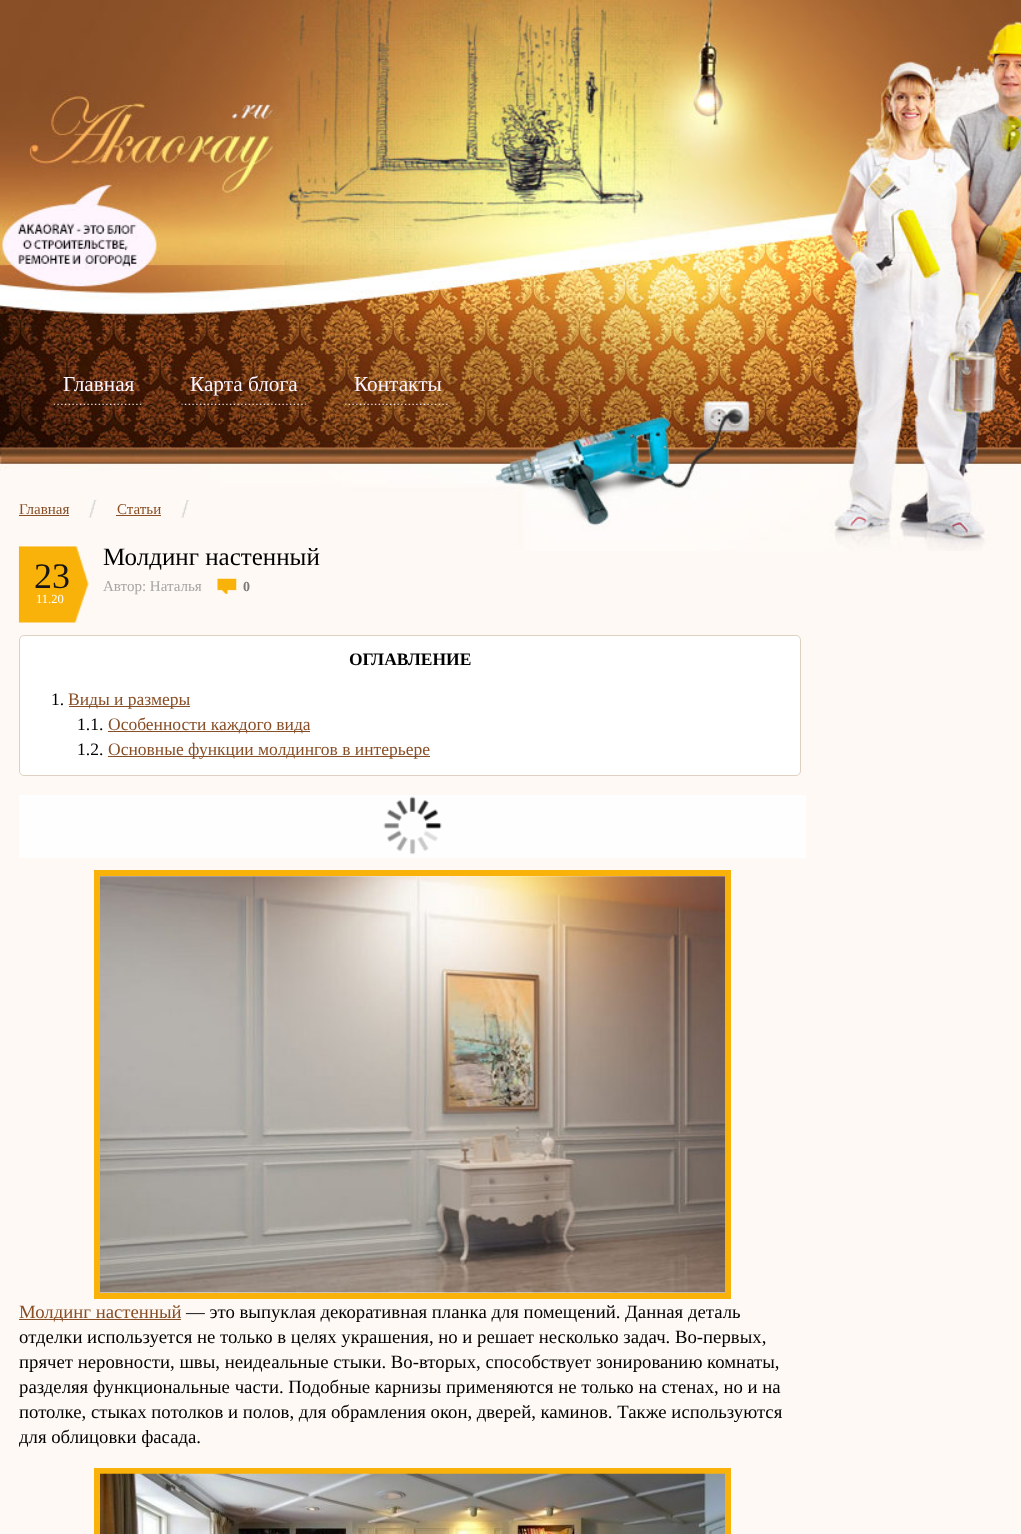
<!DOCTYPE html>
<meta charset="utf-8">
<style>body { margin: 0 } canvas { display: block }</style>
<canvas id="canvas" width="1021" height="1534"></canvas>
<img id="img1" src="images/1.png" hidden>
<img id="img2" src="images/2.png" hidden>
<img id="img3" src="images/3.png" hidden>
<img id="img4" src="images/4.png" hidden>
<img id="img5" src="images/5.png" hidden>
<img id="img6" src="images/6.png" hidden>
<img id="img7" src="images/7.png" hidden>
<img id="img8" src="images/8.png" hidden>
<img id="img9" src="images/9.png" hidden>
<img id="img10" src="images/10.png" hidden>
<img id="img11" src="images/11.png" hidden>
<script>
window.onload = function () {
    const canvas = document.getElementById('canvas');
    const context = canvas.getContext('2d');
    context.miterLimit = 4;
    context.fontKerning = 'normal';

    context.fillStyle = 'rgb(254, 249, 244)';
    context.fillRect(0, 0, 1021, 1534);
    context.drawImage(document.getElementById('img1'), 0, 0, 1021, 551);
    context.drawImage(document.getElementById('img2'), 53, 403, 92, 2);
    context.drawImage(document.getElementById('img3'), 181, 403, 126, 2);
    context.drawImage(document.getElementById('img4'), 344, 403, 108, 2);
    context.fillStyle = 'rgb(136, 79, 39)';
    context.fillRect(19, 515, 50, 1);
    context.drawImage(document.getElementById('img5'), 88, 500, 9, 18);
    context.fillRect(116, 515, 45, 1);
    context.drawImage(document.getElementById('img6'), 181, 500, 8, 18);
    context.drawImage(document.getElementById('img7'), 18, 546, 71, 77);
    context.drawImage(document.getElementById('img8'), 217, 578, 20, 16);
    context.fillStyle = 'rgb(255, 255, 255)';
    context.beginPath();
    context.roundRect(19.5, 635.5, 781, 140, 4.5);
    context.fill();
    context.strokeStyle = 'rgb(222, 209, 193)';
    context.stroke();
    context.fillStyle = 'rgb(136, 79, 39)';
    context.fillRect(69, 706, 121, 1);
    context.fillRect(108, 731, 202, 1);
    context.fillRect(108, 756, 322, 1);
    context.fillStyle = 'rgb(254, 254, 254)';
    context.fillRect(19, 795, 787, 63);
    context.drawImage(document.getElementById('img9'), 383, 796, 59, 59);
    context.strokeStyle = 'rgb(248, 178, 10)';
    context.lineWidth = 6;
    context.strokeRect(97, 873, 631, 423);
    context.drawImage(document.getElementById('img10'), 100, 876, 625, 417);
    context.fillStyle = 'rgb(136, 79, 39)';
    context.fillRect(19, 1319, 162, 1);
    context.strokeRect(97, 1471, 631, 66);
    context.drawImage(document.getElementById('img11'), 100, 1473, 625, 61);
    context.font = '21.25px Liberation Serif';
    context.fillStyle = 'rgb(255, 245, 255)';
    context.fillText('Главная', 63, 391);
    context.fillText('Карта блога', 190, 391);
    context.fillText('Контакты', 354, 391);
    context.font = '15px Liberation Serif';
    context.fillStyle = 'rgb(136, 79, 39)';
    context.fillText('Главная', 19, 514);
    context.fillText('Статьи', 117, 514);
    context.font = '25px Liberation Serif';
    context.fillStyle = 'rgb(0, 0, 0)';
    context.fillText('Молдинг настенный', 103, 565);
    context.font = '36px Liberation Serif';
    context.fillStyle = 'rgb(23, 21, 21)';
    context.fillText('23', 34, 588);
    context.font = '12.5px Liberation Serif';
    context.fillStyle = 'rgb(255, 255, 255)';
    context.fillText('11.20', 36, 603);
    context.font = '15px Liberation Serif';
    context.fillStyle = 'rgb(166, 166, 166)';
    context.fillText('Автор: Наталья', 103, 591);
    context.font = 'bold 14px Liberation Serif';
    context.fillStyle = 'rgb(121, 121, 121)';
    context.fillText('0', 243, 591);
    context.font = 'bold 17.5px Liberation Serif';
    context.fillStyle = 'rgb(0, 0, 0)';
    context.fillText('ОГЛАВЛЕНИЕ', 349, 665);
    context.font = '17.5px Liberation Serif';
    context.fillText('1.', 51, 705);
    context.fillStyle = 'rgb(136, 79, 39)';
    context.fillText('Виды и размеры', 68, 705);
    context.fillStyle = 'rgb(0, 0, 0)';
    context.fillText('1.1.', 77, 730);
    context.fillStyle = 'rgb(136, 79, 39)';
    context.fillText('Особенности каждого вида', 108, 730);
    context.fillStyle = 'rgb(0, 0, 0)';
    context.fillText('1.2.', 77, 755);
    context.fillStyle = 'rgb(136, 79, 39)';
    context.fillText('Основные функции молдингов в интерьере', 108, 755);
    context.font = '18.75px Liberation Serif';
    context.fillText('Молдинг настенный', 19, 1318);
    context.fillStyle = 'rgb(0, 0, 0)';
    context.fillText('— это выпуклая декоративная планка для помещений. Данная деталь', 186, 1318);
    context.fillText('отделки используется не только в целях украшения, но и решает несколько задач. Во-первых,', 19, 1343);
    context.fillText('прячет неровности, швы, неидеальные стыки. Во-вторых, способствует зонированию комнаты,', 19, 1368);
    context.fillText('разделяя функциональные части. Подобные карнизы применяются не только на стенах, но и на', 19, 1393);
    context.fillText('потолке, стыках потолков и полов, для обрамления окон, дверей, каминов. Также используются', 19, 1418);
    context.fillText('для облицовки фасада.', 19, 1443);
};
</script>
